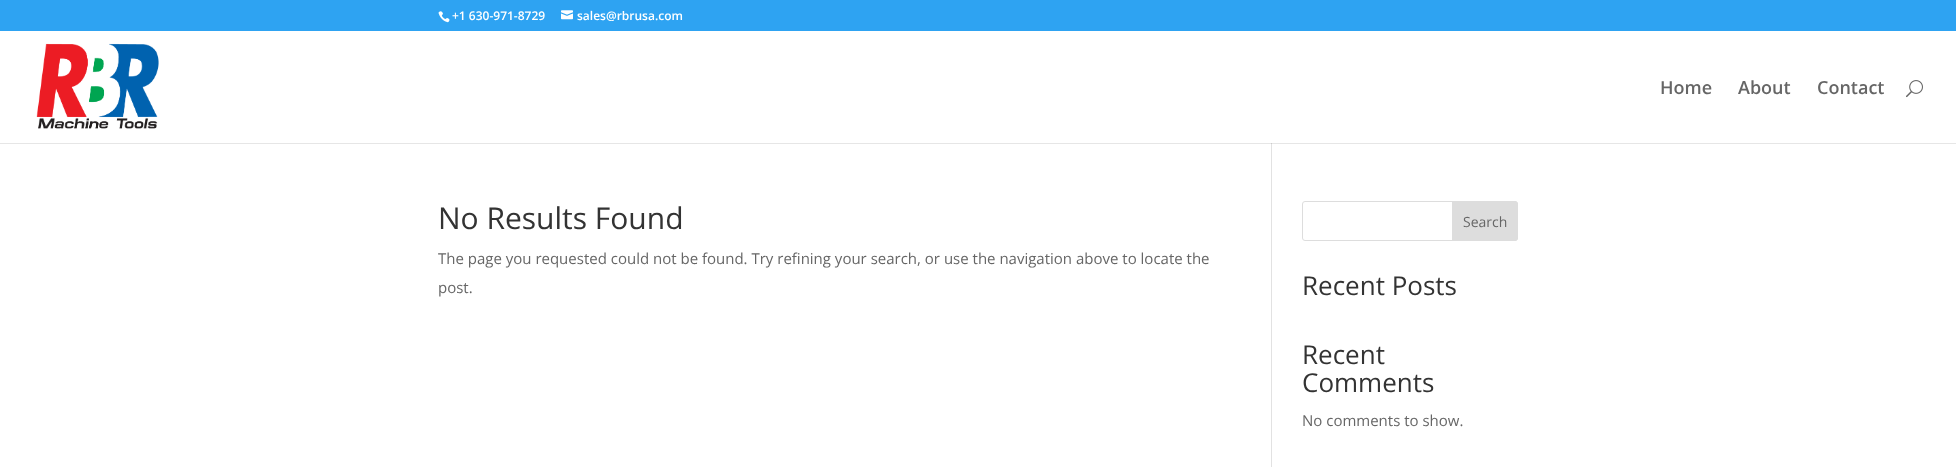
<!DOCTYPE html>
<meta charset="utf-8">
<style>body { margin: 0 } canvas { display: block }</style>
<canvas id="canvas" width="1956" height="467"></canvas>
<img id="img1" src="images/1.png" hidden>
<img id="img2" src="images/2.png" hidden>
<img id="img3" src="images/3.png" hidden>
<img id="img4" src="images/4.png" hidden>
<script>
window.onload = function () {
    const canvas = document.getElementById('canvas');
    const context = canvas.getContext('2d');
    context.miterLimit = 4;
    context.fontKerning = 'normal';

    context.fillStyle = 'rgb(255, 255, 255)';
    context.fillRect(0, 0, 1956, 467);
    context.fillStyle = 'rgb(230, 230, 230)';
    context.fillRect(0, 143, 1956, 1);
    context.fillStyle = 'rgb(46, 163, 242)';
    context.fillRect(0, 0, 1956, 31);
    context.drawImage(document.getElementById('img1'), 438, 11, 12, 12);
    context.drawImage(document.getElementById('img2'), 561, 10, 12, 10);
    context.drawImage(document.getElementById('img3'), 36, 43, 123, 86);
    context.drawImage(document.getElementById('img4'), 1906, 80, 17, 18);
    context.fillStyle = 'rgb(226, 226, 226)';
    context.fillRect(1271, 143, 1, 324);
    context.fillStyle = 'rgb(203, 203, 203)';
    context.fillRect(1271, 143, 1, 1);
    context.beginPath();
    context.roundRect(1302.5, 201.5, 215, 39, 2.5);
    context.strokeStyle = 'rgb(221, 221, 221)';
    context.stroke();
    context.fillStyle = 'rgb(221, 221, 221)';
    context.beginPath();
    context.roundRect(1452.5, 201.5, 65, 39, [0, 2.5, 2.5, 0]);
    context.fill();
    context.stroke();
    context.font = '600 12px Open Sans';
    context.fillStyle = 'rgb(255, 255, 255)';
    context.fillText('+1 630-971-8729', 452, 20);
    context.fillText('sales@rbrusa.com', 577, 20);
    context.font = '600 18px Open Sans';
    context.fillStyle = 'rgb(102, 102, 102)';
    context.fillText('Home', 1660, 94);
    context.fillText('About', 1738, 94);
    context.fillText('Contact', 1817, 94);
    context.font = '30px Open Sans';
    context.fillStyle = 'rgb(51, 51, 51)';
    context.fillText('No Results Found', 438, 229);
    context.font = '15px Open Sans';
    context.fillStyle = 'rgb(102, 102, 102)';
    context.fillText('The page you requested could not be found. Try refining your search, or use the navigation above to locate the', 438, 264);
    context.fillText('post.', 438, 293);
    context.font = '14px Open Sans';
    context.fillText('Search', 1463, 227);
    context.font = '26px Open Sans';
    context.fillStyle = 'rgb(51, 51, 51)';
    context.fillText('Recent Posts', 1302, 295);
    context.fillText('Recent', 1302, 364);
    context.fillText('Comments', 1302, 392);
    context.font = '15px Open Sans';
    context.fillStyle = 'rgb(102, 102, 102)';
    context.fillText('No comments to show.', 1302, 426);
};
</script>
